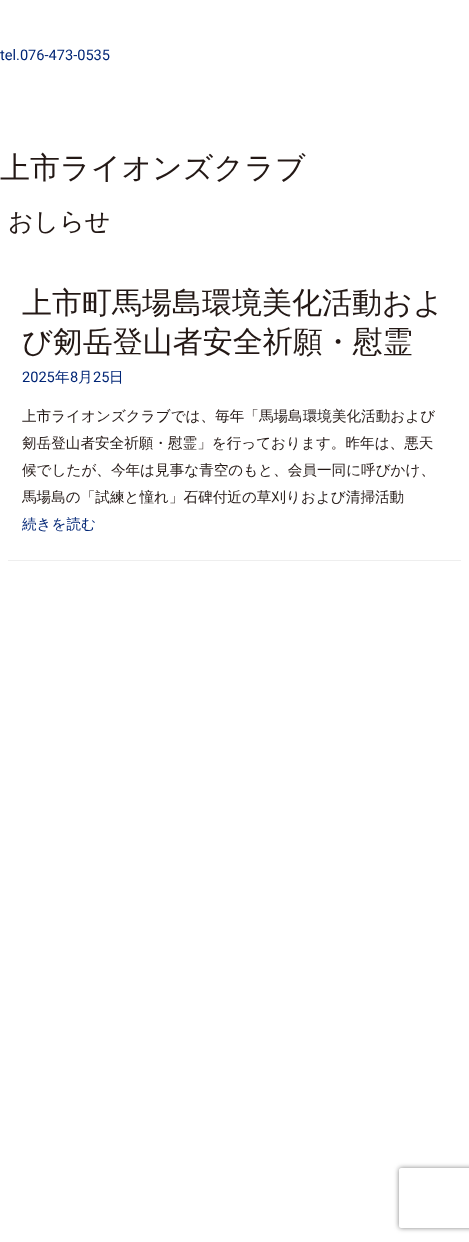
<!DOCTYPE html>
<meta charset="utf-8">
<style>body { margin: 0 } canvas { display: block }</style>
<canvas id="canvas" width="469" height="1242"></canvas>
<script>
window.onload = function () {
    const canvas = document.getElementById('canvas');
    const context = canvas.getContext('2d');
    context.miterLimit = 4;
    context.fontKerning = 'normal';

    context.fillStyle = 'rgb(255, 255, 255)';
    context.fillRect(0, 0, 469, 1242);
    context.fillStyle = 'rgb(238, 238, 238)';
    context.fillRect(8, 560, 453, 1);
    context.save();
    context.beginPath();
    context.moveTo(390, 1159);
    context.lineTo(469, 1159);
    context.lineTo(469, 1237);
    context.lineTo(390, 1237);
    context.closePath();
    context.moveTo(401, 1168);
    context.lineTo(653, 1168);
    context.bezierCurveTo(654, 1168, 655, 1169, 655, 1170);
    context.lineTo(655, 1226);
    context.bezierCurveTo(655, 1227, 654, 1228, 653, 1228);
    context.lineTo(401, 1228);
    context.bezierCurveTo(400, 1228, 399, 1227, 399, 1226);
    context.lineTo(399, 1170);
    context.bezierCurveTo(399, 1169, 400, 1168, 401, 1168);
    context.closePath();
    context.clip('evenodd');
    context.fillStyle = 'rgb(128, 128, 128)';
    context.filter = 'blur(2.5px)';
    context.beginPath();
    context.roundRect(399, 1168, 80, 60, 2);
    context.fill();
    context.filter = 'none';
    context.restore();
    context.font = '14.6px Roboto';
    context.fillStyle = 'rgb(0, 37, 117)';
    context.fillText('tel.076-473-0535', 0, 60);
    context.font = '500 30px WenQuanYi Zen Hei';
    context.fillStyle = 'rgb(35, 24, 21)';
    context.fillText('上市ライオンズクラブ', 0, 178);
    context.font = '500 25px WenQuanYi Zen Hei';
    context.fillText('おしらせ', 8, 230);
    context.font = '500 30px WenQuanYi Zen Hei';
    context.fillText('上市町馬場島環境美化活動およ', 22, 313);
    context.fillText('び剱岳登山者安全祈願・慰霊', 22, 352);
    context.font = '14.6px Roboto';
    context.fillStyle = 'rgb(0, 37, 117)';
    context.fillText('2025', 22, 382);
    context.font = '500 14.6px WenQuanYi Zen Hei';
    context.fillText('年', 55, 382);
    context.font = '14.6px Roboto';
    context.fillText('8', 70, 382);
    context.font = '500 14.6px WenQuanYi Zen Hei';
    context.fillText('月', 78, 382);
    context.font = '14.6px Roboto';
    context.fillText('25', 93, 382);
    context.font = '500 14.6px WenQuanYi Zen Hei';
    context.fillText('日', 109, 382);
    context.fillStyle = 'rgb(35, 24, 21)';
    context.fillText('上市ライオンズクラブでは、毎年「馬場島環境美化活動および', 22, 421);
    context.fillText('剱岳登山者安全祈願・慰霊」を行っております。昨年は、悪天', 22, 448);
    context.fillText('候でしたが、今年は見事な青空のもと、会員一同に呼びかけ、', 22, 475);
    context.fillText('馬場島の「試練と憧れ」石碑付近の草刈りおよび清掃活動', 22, 502);
    context.fillStyle = 'rgb(0, 37, 117)';
    context.fillText('続きを読む', 22, 529);
};
</script>
